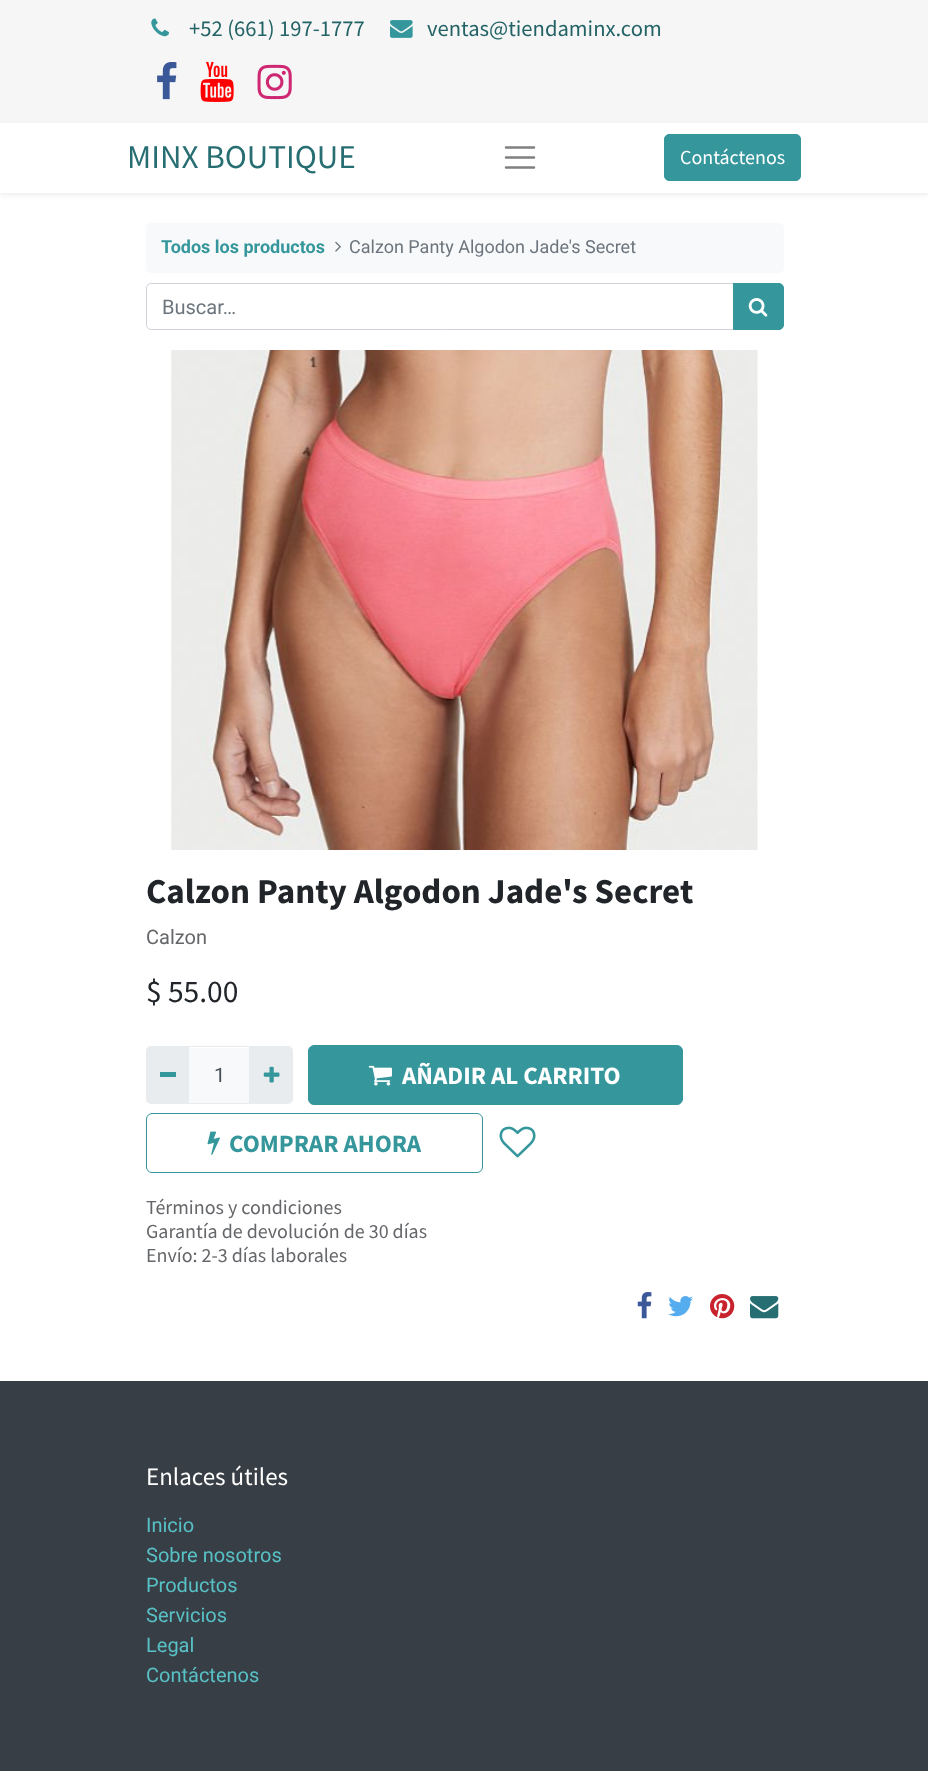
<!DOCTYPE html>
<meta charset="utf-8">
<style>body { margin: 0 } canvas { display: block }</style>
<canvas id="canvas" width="928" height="1771"></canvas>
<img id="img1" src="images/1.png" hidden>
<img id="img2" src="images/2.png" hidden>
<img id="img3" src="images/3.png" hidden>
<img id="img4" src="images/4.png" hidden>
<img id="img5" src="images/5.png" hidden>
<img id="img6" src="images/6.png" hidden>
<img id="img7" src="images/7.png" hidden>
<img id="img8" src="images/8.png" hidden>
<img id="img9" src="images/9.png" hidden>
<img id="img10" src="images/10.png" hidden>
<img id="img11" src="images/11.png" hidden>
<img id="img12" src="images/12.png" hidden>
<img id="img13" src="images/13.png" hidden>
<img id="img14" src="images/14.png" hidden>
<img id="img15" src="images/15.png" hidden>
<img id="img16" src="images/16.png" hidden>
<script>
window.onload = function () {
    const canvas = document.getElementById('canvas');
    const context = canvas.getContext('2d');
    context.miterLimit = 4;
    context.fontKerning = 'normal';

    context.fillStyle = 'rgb(255, 255, 255)';
    context.fillRect(0, 0, 928, 1771);
    context.fillStyle = 'rgb(246, 246, 246)';
    context.fillRect(0, 0, 928, 123);
    context.drawImage(document.getElementById('img1'), 151, 18, 18, 19);
    context.drawImage(document.getElementById('img2'), 390, 20, 23, 18);
    context.drawImage(document.getElementById('img3'), 157, 62, 20, 38);
    context.drawImage(document.getElementById('img4'), 200, 61, 34, 41);
    context.drawImage(document.getElementById('img5'), 257, 64, 35, 36);
    context.fillStyle = 'rgba(0, 0, 0, 0.07)';
    context.filter = 'blur(2.5px)';
    context.beginPath();
    context.rect(0, 125, 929, 70);
    context.fill();
    context.filter = 'none';
    context.fillStyle = 'rgb(255, 255, 255)';
    context.fillRect(0, 123, 928, 70);
    context.beginPath();
    context.moveTo(506, 147.5);
    context.lineTo(534, 147.5);
    context.moveTo(506, 157.5);
    context.lineTo(534, 157.5);
    context.moveTo(506, 167.5);
    context.lineTo(534, 167.5);
    context.strokeStyle = 'rgb(128, 128, 128)';
    context.lineWidth = 2.5;
    context.lineCap = 'round';
    context.stroke();
    context.fillStyle = 'rgb(53, 151, 156)';
    context.beginPath();
    context.roundRect(664.5, 134.5, 136, 46, 4.5);
    context.fill();
    context.strokeStyle = 'rgb(53, 151, 156)';
    context.lineWidth = 1;
    context.stroke();
    context.fillStyle = 'rgb(248, 249, 250)';
    context.beginPath();
    context.roundRect(146, 223, 638, 50, 5);
    context.fill();
    context.drawImage(document.getElementById('img6'), 335, 241, 6, 11);
    context.beginPath();
    context.roundRect(146.5, 283.5, 587, 46, [4.5, 0, 0, 4.5]);
    context.strokeStyle = 'rgb(206, 212, 218)';
    context.stroke();
    context.fillStyle = 'rgb(53, 151, 156)';
    context.beginPath();
    context.roundRect(733.5, 283.5, 50, 46, [0, 4.5, 4.5, 0]);
    context.fill();
    context.strokeStyle = 'rgb(53, 151, 156)';
    context.stroke();
    context.drawImage(document.getElementById('img7'), 748, 298, 20, 19);
    context.drawImage(document.getElementById('img8'), 171, 350, 587, 500);
    context.fillStyle = 'rgb(248, 249, 250)';
    context.fillRect(189, 1048, 60, 55);
    context.strokeStyle = 'rgb(233, 236, 239)';
    context.strokeRect(188.5, 1046.5, 61, 57);
    context.fillStyle = 'rgb(233, 236, 239)';
    context.beginPath();
    context.roundRect(146, 1046, 43, 58, [5, 0, 0, 5]);
    context.fill();
    context.fillStyle = 'rgb(53, 151, 156)';
    context.fillRect(160, 1072, 16, 5);
    context.fillStyle = 'rgb(233, 236, 239)';
    context.beginPath();
    context.roundRect(249, 1046, 44, 58, [0, 5, 5, 0]);
    context.fill();
    context.drawImage(document.getElementById('img9'), 263, 1066, 17, 17);
    context.fillStyle = 'rgb(53, 151, 156)';
    context.beginPath();
    context.roundRect(308.5, 1045.5, 374, 59, 5.5);
    context.fill();
    context.strokeStyle = 'rgb(53, 151, 156)';
    context.stroke();
    context.drawImage(document.getElementById('img10'), 368, 1065, 24, 21);
    context.beginPath();
    context.roundRect(146.5, 1113.5, 336, 59, 5.5);
    context.stroke();
    context.drawImage(document.getElementById('img11'), 207, 1131, 13, 24);
    context.drawImage(document.getElementById('img12'), 499, 1126, 37, 32);
    context.drawImage(document.getElementById('img13'), 637, 1292, 15, 27);
    context.drawImage(document.getElementById('img14'), 668, 1296, 25, 21);
    context.drawImage(document.getElementById('img15'), 710, 1294, 25, 25);
    context.drawImage(document.getElementById('img16'), 750, 1296, 29, 23);
    context.fillStyle = 'rgb(56, 62, 69)';
    context.fillRect(0, 1381, 928, 390);
    context.font = '22.6px Source Sans Pro';
    context.fillStyle = 'rgb(35, 99, 102)';
    context.fillText('+52 (661) 197-1777', 189, 36);
    context.fillText('ventas@tiendaminx.com', 427, 36);
    context.font = '33.25px Source Sans Pro';
    context.fillStyle = 'rgb(39, 110, 114)';
    context.fillText('MINX BOUTIQUE', 127, 168);
    context.font = '20px Source Sans Pro';
    context.fillStyle = 'rgb(255, 255, 255)';
    context.fillText('Contáctenos', 680, 164);
    context.font = 'bold 18px Roboto';
    context.fillStyle = 'rgb(53, 151, 156)';
    context.fillText('Todos los productos', 161, 253);
    context.font = '18px Roboto';
    context.fillStyle = 'rgb(108, 117, 125)';
    context.fillText('Calzon Panty Algodon Jade\'s Secret', 349, 253);
    context.font = '20px Roboto';
    context.fillText('Buscar…', 162, 314);
    context.font = 'bold 35px Source Sans Pro';
    context.fillStyle = 'rgb(33, 37, 41)';
    context.fillText('Calzon Panty Algodon Jade\'s Secret', 146, 903);
    context.font = '20px Roboto';
    context.fillStyle = 'rgb(100, 102, 105)';
    context.fillText('Calzon', 146, 944);
    context.font = '31.5px Source Sans Pro';
    context.fillStyle = 'rgb(33, 37, 41)';
    context.fillText('$ 55.00', 146, 1002);
    context.font = '20px Roboto';
    context.fillStyle = 'rgb(73, 80, 87)';
    context.fillText('1', 214, 1082);
    context.font = 'bold 25px Source Sans Pro';
    context.fillStyle = 'rgb(255, 255, 255)';
    context.fillText('AÑADIR AL CARRITO', 402, 1084);
    context.fillStyle = 'rgb(53, 151, 156)';
    context.fillText('COMPRAR AHORA', 229, 1152);
    context.font = '20px Source Sans Pro';
    context.fillStyle = 'rgb(100, 102, 105)';
    context.fillText('Términos y condiciones', 146, 1214);
    context.fillText('Garantía de devolución de 30 días', 146, 1238);
    context.fillText('Envío: 2-3 días laborales', 146, 1262);
    context.font = '25px Source Sans Pro';
    context.fillStyle = 'rgb(255, 255, 255)';
    context.fillText('Enlaces útiles', 146, 1485);
    context.font = '20px Roboto';
    context.fillStyle = 'rgb(87, 193, 198)';
    context.fillText('Inicio', 146, 1532);
    context.fillText('Sobre nosotros', 146, 1562);
    context.fillText('Productos', 146, 1592);
    context.fillText('Servicios', 146, 1622);
    context.fillText('Legal', 146, 1652);
    context.fillText('Contáctenos', 146, 1682);
};
</script>
